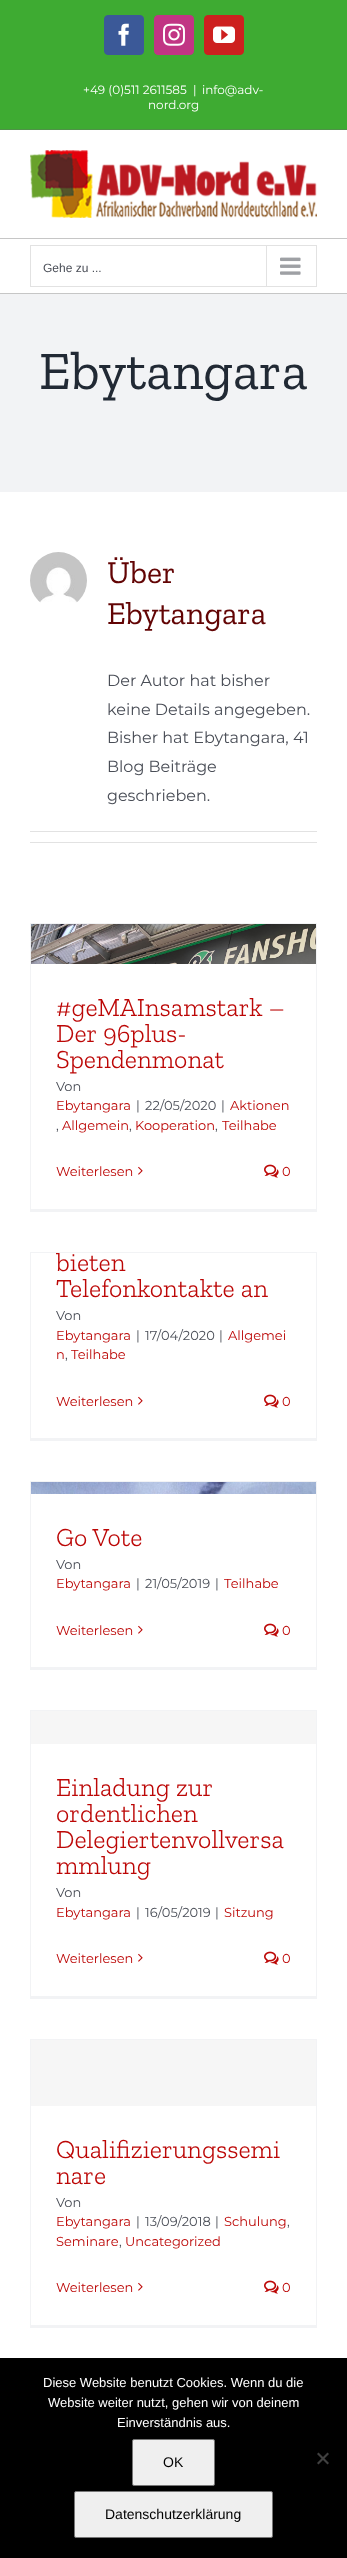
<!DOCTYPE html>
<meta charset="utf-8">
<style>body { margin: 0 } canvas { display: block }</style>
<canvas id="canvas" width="347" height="2558"></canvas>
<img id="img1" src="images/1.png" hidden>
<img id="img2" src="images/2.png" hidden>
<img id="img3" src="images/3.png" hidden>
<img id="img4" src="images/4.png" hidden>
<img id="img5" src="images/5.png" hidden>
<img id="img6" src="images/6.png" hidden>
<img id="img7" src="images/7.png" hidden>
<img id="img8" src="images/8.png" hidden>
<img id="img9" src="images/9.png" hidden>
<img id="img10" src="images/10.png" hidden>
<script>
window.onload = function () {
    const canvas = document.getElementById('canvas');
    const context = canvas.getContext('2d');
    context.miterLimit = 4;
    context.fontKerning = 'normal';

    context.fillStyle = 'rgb(255, 255, 255)';
    context.fillRect(0, 0, 347, 2558);
    context.fillStyle = 'rgb(62, 171, 50)';
    context.fillRect(0, 0, 347, 129);
    context.fillStyle = 'rgb(78, 146, 71)';
    context.fillRect(0, 129, 347, 1);
    context.fillStyle = 'rgb(59, 89, 152)';
    context.beginPath();
    context.roundRect(104.5, 15.5, 39, 39, 3.5);
    context.fill();
    context.strokeStyle = 'rgb(59, 89, 152)';
    context.stroke();
    context.drawImage(document.getElementById('img1'), 118, 23, 11, 23);
    context.fillStyle = 'rgb(193, 53, 132)';
    context.beginPath();
    context.roundRect(154.5, 15.5, 39, 39, 3.5);
    context.fill();
    context.strokeStyle = 'rgb(193, 53, 132)';
    context.stroke();
    context.drawImage(document.getElementById('img2'), 163, 23, 22, 23);
    context.fillStyle = 'rgb(205, 32, 31)';
    context.beginPath();
    context.roundRect(204.5, 15.5, 39, 39, 3.5);
    context.fill();
    context.strokeStyle = 'rgb(205, 32, 31)';
    context.stroke();
    context.drawImage(document.getElementById('img3'), 213, 26, 22, 17);
    context.fillStyle = 'rgb(198, 198, 198)';
    context.fillRect(0, 238, 347, 1);
    context.drawImage(document.getElementById('img4'), 30, 150, 287, 68);
    context.fillRect(0, 293, 347, 1);
    context.strokeStyle = 'rgb(226, 226, 226)';
    context.strokeRect(30.5, 245.5, 286, 41);
    context.fillStyle = 'rgb(226, 226, 226)';
    context.fillRect(266, 246, 1, 40);
    context.drawImage(document.getElementById('img5'), 280, 257, 21, 18);
    context.fillStyle = 'rgb(242, 243, 245)';
    context.fillRect(0, 294, 347, 198);
    context.drawImage(document.getElementById('img6'), 30, 552, 57, 51);
    context.fillStyle = 'rgb(226, 226, 226)';
    context.fillRect(30, 831, 287, 1);
    context.fillRect(30, 842, 287, 1);
    context.fillStyle = 'rgb(242, 243, 245)';
    context.fillRect(30, 923, 287, 1);
    context.fillRect(316, 923, 1, 289);
    context.fillRect(30, 1209, 287, 3);
    context.fillRect(30, 923, 1, 289);
    context.drawImage(document.getElementById('img7'), 31, 924, 285, 40);
    context.drawImage(document.getElementById('img8'), 138, 1166, 5, 9);
    context.drawImage(document.getElementById('img9'), 264, 1164, 15, 14);
    context.fillRect(30, 1252, 287, 1);
    context.fillRect(316, 1252, 1, 189);
    context.fillRect(30, 1438, 287, 3);
    context.fillRect(30, 1252, 1, 189);
    context.drawImage(document.getElementById('img8'), 138, 1396, 5, 9);
    context.drawImage(document.getElementById('img9'), 264, 1394, 15, 14);
    context.fillRect(30, 1481, 287, 1);
    context.fillRect(316, 1481, 1, 189);
    context.fillRect(30, 1667, 287, 3);
    context.fillRect(30, 1481, 1, 189);
    context.drawImage(document.getElementById('img10'), 31, 1482, 285, 12);
    context.drawImage(document.getElementById('img8'), 138, 1625, 5, 9);
    context.drawImage(document.getElementById('img9'), 264, 1623, 15, 14);
    context.fillRect(30, 1710, 287, 1);
    context.fillRect(316, 1710, 1, 289);
    context.fillRect(30, 1996, 287, 3);
    context.fillRect(30, 1710, 1, 289);
    context.fillStyle = 'rgb(246, 246, 246)';
    context.fillRect(31, 1711, 285, 33);
    context.drawImage(document.getElementById('img8'), 138, 1953, 5, 9);
    context.drawImage(document.getElementById('img9'), 264, 1951, 15, 14);
    context.fillStyle = 'rgb(242, 243, 245)';
    context.fillRect(30, 2039, 287, 1);
    context.fillRect(316, 2039, 1, 289);
    context.fillRect(30, 2325, 287, 3);
    context.fillRect(30, 2039, 1, 289);
    context.fillStyle = 'rgb(246, 246, 246)';
    context.fillRect(31, 2040, 285, 66);
    context.drawImage(document.getElementById('img8'), 138, 2282, 5, 9);
    context.drawImage(document.getElementById('img9'), 264, 2280, 15, 14);
    context.fillStyle = 'rgb(0, 0, 0)';
    context.fillRect(0, 2358, 347, 200);
    context.fillStyle = 'rgb(239, 239, 239)';
    context.beginPath();
    context.roundRect(132.5, 2439.5, 82, 46, 1.5);
    context.fill();
    context.strokeStyle = 'rgb(118, 118, 118)';
    context.stroke();
    context.beginPath();
    context.roundRect(74.5, 2491.5, 198, 46, 1.5);
    context.fill();
    context.stroke();
    context.fillStyle = 'rgb(64, 64, 64)';
    context.beginPath();
    context.moveTo(327.5, 2452.5);
    context.lineTo(329, 2454);
    context.lineTo(318.5, 2464.5);
    context.lineTo(317, 2463);
    context.closePath();
    context.fill();
    context.beginPath();
    context.moveTo(317, 2454);
    context.lineTo(318.5, 2452.5);
    context.lineTo(329, 2463);
    context.lineTo(327.5, 2464.5);
    context.closePath();
    context.fill();
    context.font = '12px Montserrat';
    context.fillStyle = 'rgb(255, 255, 255)';
    context.fillText('+49 (0)511 2611585', 83, 94);
    context.fillText('|', 193, 94);
    context.fillText('info@adv-', 202, 94);
    context.fillText('nord.org', 148, 109);
    context.font = '12px Liberation Sans';
    context.fillStyle = 'rgb(74, 78, 87)';
    context.fillText('Gehe zu ...', 43, 272);
    context.font = '54px Zilla Slab';
    context.fillStyle = 'rgb(33, 41, 52)';
    context.fillText('Ebytangara', 39, 389);
    context.font = '32px Zilla Slab';
    context.fillStyle = 'rgb(98, 4, 4)';
    context.fillText('Über', 107, 583);
    context.fillText('Ebytangara', 107, 624);
    context.font = '16px Montserrat';
    context.fillStyle = 'rgb(74, 78, 87)';
    context.fillText('Der Autor hat bisher', 107, 686);
    context.fillText('keine Details angegeben.', 107, 715);
    context.fillText('Bisher hat Ebytangara, 41', 107, 743);
    context.fillText('Blog Beiträge', 107, 772);
    context.fillText('geschrieben.', 107, 801);
    context.font = '300 26px Zilla Slab';
    context.fillStyle = 'rgb(188, 7, 6)';
    context.fillText('#geMAInsamstark –', 56, 1016);
    context.fillText('Der 96plus-', 56, 1042);
    context.fillText('Spendenmonat', 56, 1068);
    context.font = '13px Montserrat';
    context.fillStyle = 'rgb(74, 78, 87)';
    context.fillText('Von', 56, 1091);
    context.fillStyle = 'rgb(188, 7, 6)';
    context.fillText('Ebytangara', 56, 1110);
    context.fillStyle = 'rgb(74, 78, 87)';
    context.fillText('|', 136, 1110);
    context.fillText('22/05/2020', 145, 1110);
    context.fillText('|', 221, 1110);
    context.fillStyle = 'rgb(188, 7, 6)';
    context.fillText('Aktionen', 230, 1110);
    context.fillStyle = 'rgb(74, 78, 87)';
    context.fillText(',', 56, 1130);
    context.fillStyle = 'rgb(188, 7, 6)';
    context.fillText('Allgemein', 62, 1130);
    context.fillStyle = 'rgb(74, 78, 87)';
    context.fillText(',', 129, 1130);
    context.fillStyle = 'rgb(188, 7, 6)';
    context.fillText('Kooperation', 135, 1130);
    context.fillStyle = 'rgb(74, 78, 87)';
    context.fillText(',', 215, 1130);
    context.fillStyle = 'rgb(188, 7, 6)';
    context.fillText('Teilhabe', 222, 1130);
    context.fillText('Weiterlesen', 56, 1176);
    context.fillText('0', 282, 1176);
    context.font = '300 26px Zilla Slab';
    context.fillText('bieten', 56, 1271);
    context.fillText('Telefonkontakte an', 56, 1297);
    context.font = '13px Montserrat';
    context.fillStyle = 'rgb(74, 78, 87)';
    context.fillText('Von', 56, 1320);
    context.fillStyle = 'rgb(188, 7, 6)';
    context.fillText('Ebytangara', 56, 1340);
    context.fillStyle = 'rgb(74, 78, 87)';
    context.fillText('|', 136, 1340);
    context.fillText('17/04/2020', 145, 1340);
    context.fillText('|', 219, 1340);
    context.fillStyle = 'rgb(188, 7, 6)';
    context.fillText('Allgemei', 228, 1340);
    context.fillText('n', 56, 1359);
    context.fillStyle = 'rgb(74, 78, 87)';
    context.fillText(',', 65, 1359);
    context.fillStyle = 'rgb(188, 7, 6)';
    context.fillText('Teilhabe', 71, 1359);
    context.fillText('Weiterlesen', 56, 1406);
    context.fillText('0', 282, 1406);
    context.font = '300 26px Zilla Slab';
    context.fillText('Go Vote', 56, 1546);
    context.font = '13px Montserrat';
    context.fillStyle = 'rgb(74, 78, 87)';
    context.fillText('Von', 56, 1569);
    context.fillStyle = 'rgb(188, 7, 6)';
    context.fillText('Ebytangara', 56, 1588);
    context.fillStyle = 'rgb(74, 78, 87)';
    context.fillText('|', 136, 1588);
    context.fillText('21/05/2019', 145, 1588);
    context.fillText('|', 215, 1588);
    context.fillStyle = 'rgb(188, 7, 6)';
    context.fillText('Teilhabe', 224, 1588);
    context.fillText('Weiterlesen', 56, 1635);
    context.fillText('0', 282, 1635);
    context.font = '300 26px Zilla Slab';
    context.fillText('Einladung zur', 56, 1796);
    context.fillText('ordentlichen', 56, 1822);
    context.fillText('Delegiertenvollversa', 56, 1848);
    context.fillText('mmlung', 56, 1874);
    context.font = '13px Montserrat';
    context.fillStyle = 'rgb(74, 78, 87)';
    context.fillText('Von', 56, 1897);
    context.fillStyle = 'rgb(188, 7, 6)';
    context.fillText('Ebytangara', 56, 1917);
    context.fillStyle = 'rgb(74, 78, 87)';
    context.fillText('|', 136, 1917);
    context.fillText('16/05/2019', 145, 1917);
    context.fillText('|', 215, 1917);
    context.fillStyle = 'rgb(188, 7, 6)';
    context.fillText('Sitzung', 224, 1917);
    context.fillText('Weiterlesen', 56, 1963);
    context.fillText('0', 282, 1963);
    context.font = '300 26px Zilla Slab';
    context.fillText('Qualifizierungssemi', 56, 2158);
    context.fillText('nare', 56, 2184);
    context.font = '13px Montserrat';
    context.fillStyle = 'rgb(74, 78, 87)';
    context.fillText('Von', 56, 2207);
    context.fillStyle = 'rgb(188, 7, 6)';
    context.fillText('Ebytangara', 56, 2226);
    context.fillStyle = 'rgb(74, 78, 87)';
    context.fillText('|', 136, 2226);
    context.fillText('13/09/2018', 145, 2226);
    context.fillText('|', 215, 2226);
    context.fillStyle = 'rgb(188, 7, 6)';
    context.fillText('Schulung', 224, 2226);
    context.fillStyle = 'rgb(74, 78, 87)';
    context.fillText(',', 287, 2226);
    context.fillStyle = 'rgb(188, 7, 6)';
    context.fillText('Seminare', 56, 2246);
    context.fillStyle = 'rgb(74, 78, 87)';
    context.fillText(',', 119, 2246);
    context.fillStyle = 'rgb(188, 7, 6)';
    context.fillText('Uncategorized', 125, 2246);
    context.fillText('Weiterlesen', 56, 2292);
    context.fillText('0', 282, 2292);
    context.font = '13px Liberation Sans';
    context.fillStyle = 'rgb(255, 255, 255)';
    context.fillText('Diese Website benutzt Cookies. Wenn du die', 43, 2387);
    context.fillText('Website weiter nutzt, gehen wir von deinem', 48, 2407);
    context.fillText('Einverständnis aus.', 117, 2427);
    context.font = '14px Liberation Sans';
    context.fillStyle = 'rgb(0, 0, 0)';
    context.fillText('OK', 163, 2467);
    context.fillText('Datenschutzerklärung', 105, 2519);
};
</script>
